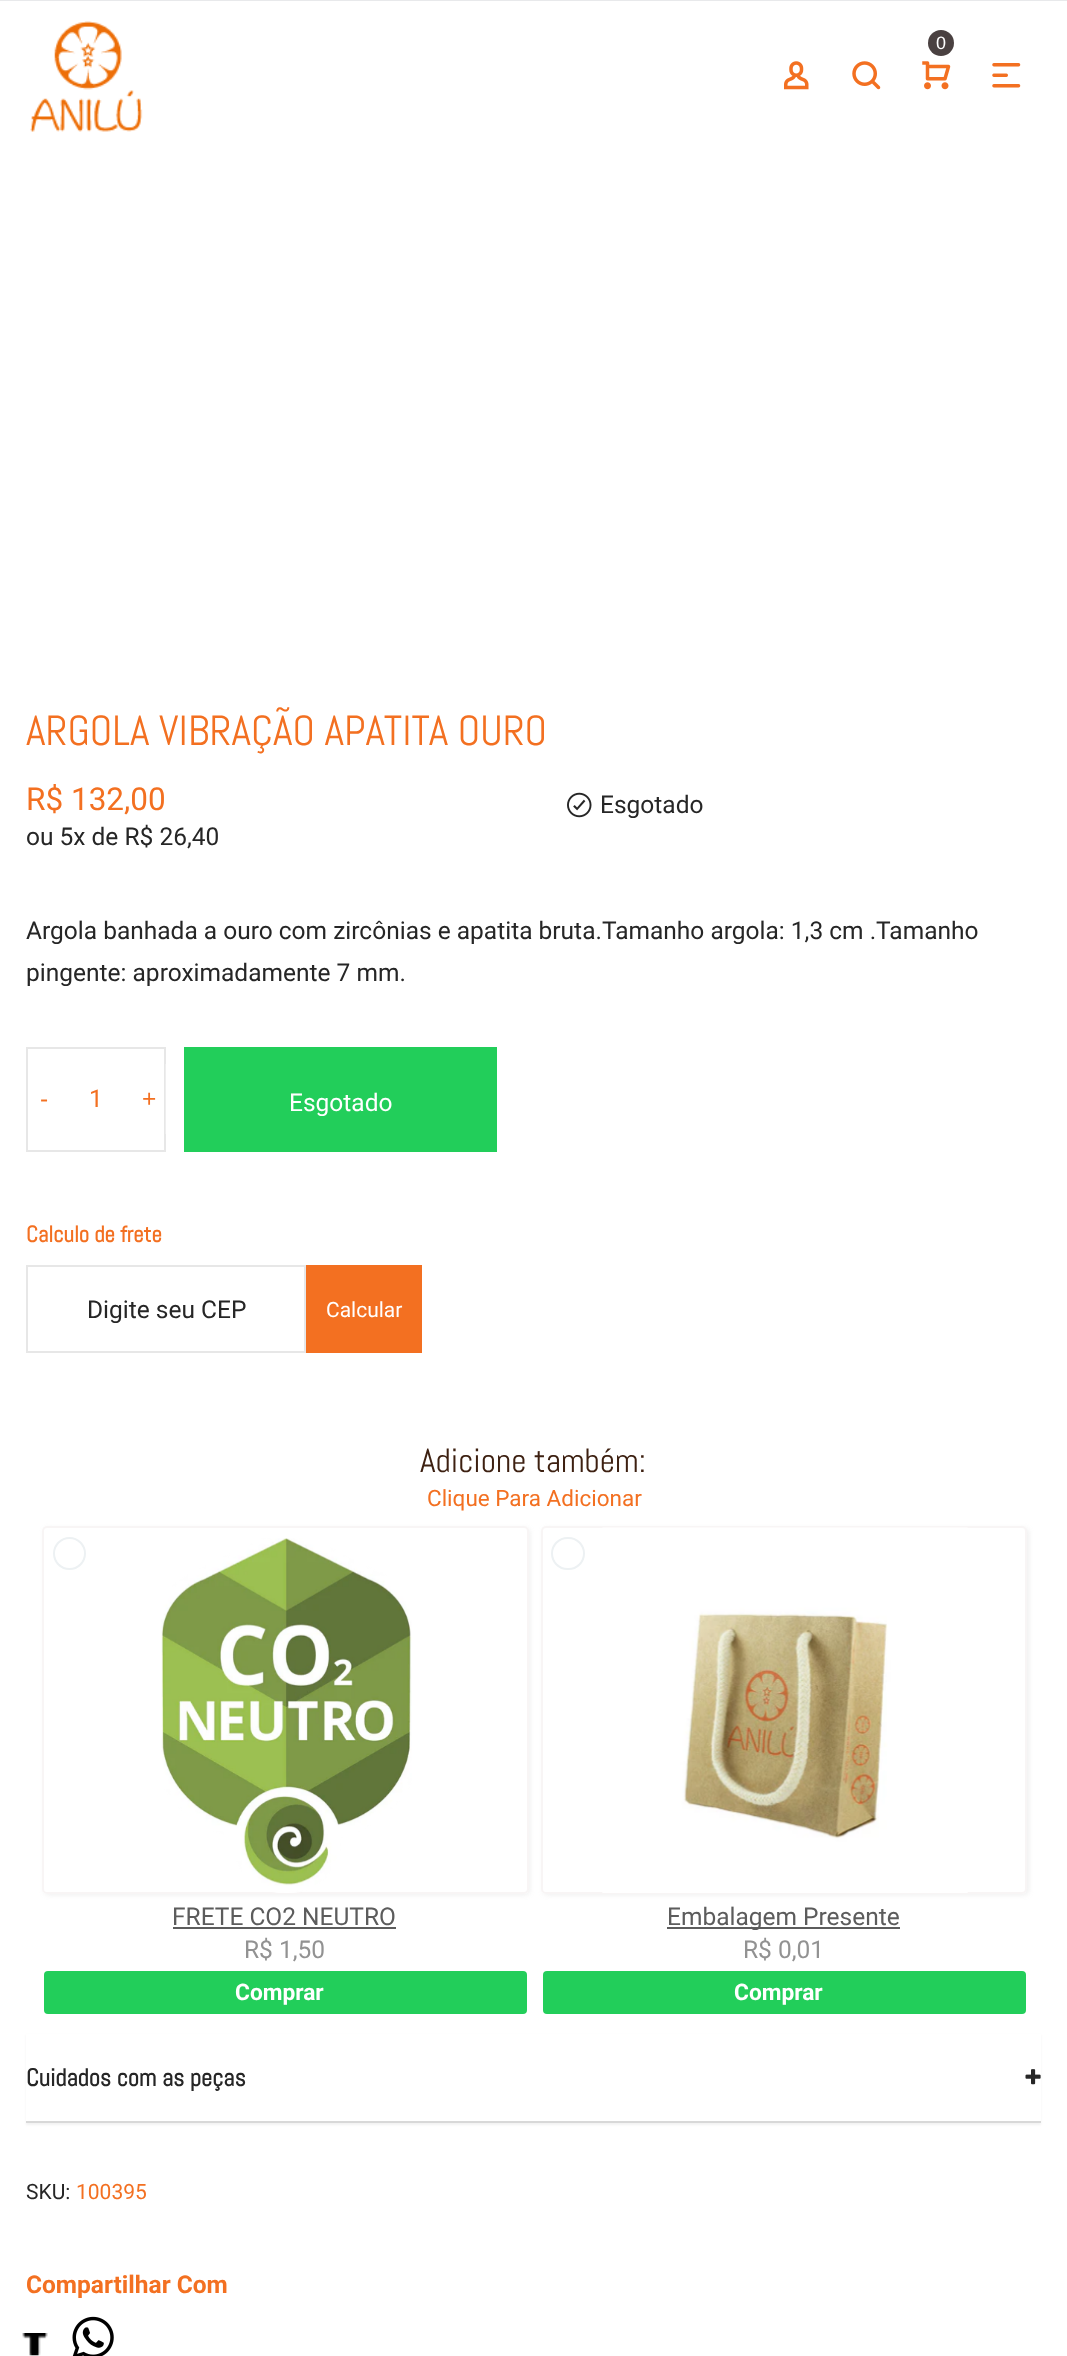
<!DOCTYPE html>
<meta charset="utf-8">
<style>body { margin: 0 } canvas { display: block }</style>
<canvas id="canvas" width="1067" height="2356"></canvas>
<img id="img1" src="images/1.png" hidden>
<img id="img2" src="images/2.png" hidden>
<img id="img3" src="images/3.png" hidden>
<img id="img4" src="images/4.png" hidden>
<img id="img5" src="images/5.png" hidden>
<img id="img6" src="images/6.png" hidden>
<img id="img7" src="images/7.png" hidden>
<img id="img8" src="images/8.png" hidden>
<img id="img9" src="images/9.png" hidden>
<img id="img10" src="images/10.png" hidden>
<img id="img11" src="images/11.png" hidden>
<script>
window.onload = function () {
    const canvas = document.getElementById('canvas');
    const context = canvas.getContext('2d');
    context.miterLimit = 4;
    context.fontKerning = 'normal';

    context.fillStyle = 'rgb(255, 255, 255)';
    context.fillRect(0, 0, 1067, 2356);
    context.fillStyle = 'rgb(232, 233, 235)';
    context.fillRect(0, 0, 1067, 1);
    context.drawImage(document.getElementById('img1'), 30, 21, 113, 111);
    context.fillStyle = 'rgb(74, 65, 65)';
    context.beginPath();
    context.arc(941, 43, 13, 0, 2 * Math.PI);
    context.fill();
    context.drawImage(document.getElementById('img2'), 922, 61, 29, 29);
    context.drawImage(document.getElementById('img3'), 784, 61, 25, 29);
    context.drawImage(document.getElementById('img4'), 852, 61, 29, 29);
    context.drawImage(document.getElementById('img5'), 992, 63, 29, 25);
    context.drawImage(document.getElementById('img6'), 567, 792, 25, 26);
    context.strokeStyle = 'rgb(231, 231, 231)';
    context.lineWidth = 2;
    context.strokeRect(27, 1048, 138, 103);
    context.fillStyle = 'rgba(255, 255, 255, 0.3)';
    context.fillRect(165, 1064, 1, 70);
    context.fillStyle = 'rgb(34, 206, 90)';
    context.fillRect(184, 1047, 313, 105);
    context.strokeRect(27, 1266, 278, 86);
    context.fillStyle = 'rgb(243, 112, 33)';
    context.fillRect(306, 1265, 116, 88);
    context.save();
    context.beginPath();
    context.moveTo(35, 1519);
    context.lineTo(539, 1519);
    context.lineTo(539, 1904);
    context.lineTo(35, 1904);
    context.closePath();
    context.moveTo(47, 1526);
    context.lineTo(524, 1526);
    context.bezierCurveTo(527, 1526, 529, 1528, 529, 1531);
    context.lineTo(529, 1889);
    context.bezierCurveTo(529, 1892, 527, 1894, 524, 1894);
    context.lineTo(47, 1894);
    context.bezierCurveTo(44, 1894, 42, 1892, 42, 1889);
    context.lineTo(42, 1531);
    context.bezierCurveTo(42, 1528, 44, 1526, 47, 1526);
    context.closePath();
    context.clip('evenodd');
    context.fillStyle = 'rgba(146, 146, 146, 0.15)';
    context.filter = 'blur(2.5px)';
    context.beginPath();
    context.roundRect(44, 1528, 486, 367, 5);
    context.fill();
    context.filter = 'none';
    context.restore();
    context.beginPath();
    context.roundRect(43, 1527, 485, 366, 4);
    context.strokeStyle = 'rgba(231, 222, 222, 0.3)';
    context.stroke();
    context.beginPath();
    context.arc(69.5, 1553.5, 15.5, 0, 2 * Math.PI);
    context.strokeStyle = 'rgb(237, 241, 243)';
    context.stroke();
    context.drawImage(document.getElementById('img7'), 161, 1538, 251, 355);
    context.fillStyle = 'rgb(92, 92, 92)';
    context.fillRect(173, 1927, 223, 2);
    context.fillStyle = 'rgb(34, 206, 90)';
    context.beginPath();
    context.roundRect(44, 1971, 483, 43, 4);
    context.fill();
    context.save();
    context.beginPath();
    context.moveTo(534, 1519);
    context.lineTo(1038, 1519);
    context.lineTo(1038, 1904);
    context.lineTo(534, 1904);
    context.closePath();
    context.moveTo(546, 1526);
    context.lineTo(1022, 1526);
    context.bezierCurveTo(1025, 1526, 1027, 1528, 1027, 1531);
    context.lineTo(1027, 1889);
    context.bezierCurveTo(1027, 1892, 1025, 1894, 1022, 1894);
    context.lineTo(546, 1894);
    context.bezierCurveTo(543, 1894, 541, 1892, 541, 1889);
    context.lineTo(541, 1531);
    context.bezierCurveTo(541, 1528, 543, 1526, 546, 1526);
    context.closePath();
    context.clip('evenodd');
    context.fillStyle = 'rgba(146, 146, 146, 0.15)';
    context.filter = 'blur(2.5px)';
    context.beginPath();
    context.roundRect(543, 1528, 486, 367, 5);
    context.fill();
    context.filter = 'none';
    context.restore();
    context.beginPath();
    context.roundRect(542, 1527, 484, 366, 4);
    context.strokeStyle = 'rgba(231, 222, 222, 0.3)';
    context.stroke();
    context.beginPath();
    context.roundRect(552, 1538, 32, 31, 15.5);
    context.strokeStyle = 'rgb(237, 241, 243)';
    context.stroke();
    context.drawImage(document.getElementById('img8'), 602, 1527, 366, 366);
    context.fillStyle = 'rgb(92, 92, 92)';
    context.fillRect(667, 1927, 233, 2);
    context.fillStyle = 'rgb(34, 206, 90)';
    context.beginPath();
    context.roundRect(543, 1971, 483, 43, 4);
    context.fill();
    context.fillStyle = 'rgba(0, 0, 0, 0.05)';
    context.filter = 'blur(1px)';
    context.beginPath();
    context.rect(26, 2035, 1015, 90);
    context.fill();
    context.filter = 'none';
    context.fillStyle = 'rgb(255, 255, 255)';
    context.fillRect(26, 2034, 1015, 87);
    context.fillStyle = 'rgb(216, 216, 216)';
    context.fillRect(26, 2121, 1015, 2);
    context.drawImage(document.getElementById('img9'), 1025, 2069, 16, 16);
    context.drawImage(document.getElementById('img10'), 22, 2333, 26, 23);
    context.drawImage(document.getElementById('img11'), 72, 2316, 42, 40);
    context.font = '18px Liberation Sans';
    context.fillStyle = 'rgb(255, 255, 255)';
    context.fillText('0', 936, 49);
    context.font = '42px Abel';
    context.fillStyle = 'rgb(243, 112, 33)';
    context.fillText('ARGOLA VIBRAÇÃO APATITA OURO', 26, 745);
    context.font = '31.5px Roboto';
    context.fillText('R$ 132,00', 26, 810);
    context.font = '24.5px Roboto';
    context.fillStyle = 'rgb(38, 38, 38)';
    context.fillText('ou 5x de R$ 26,40', 26, 845);
    context.fillText('Esgotado', 600, 813);
    context.fillText('Argola banhada a ouro com zircônias e apatita bruta.Tamanho argola: 1,3 cm .Tamanho', 26, 939);
    context.fillText('pingente: aproximadamente 7 mm.', 26, 981);
    context.font = '24.5px Liberation Sans';
    context.fillStyle = 'rgb(243, 112, 33)';
    context.fillText('-', 40, 1107);
    context.font = '24.5px Roboto';
    context.fillText('1', 89, 1107);
    context.font = '24.5px Liberation Sans';
    context.fillText('+', 142, 1107);
    context.font = '24.5px Roboto';
    context.fillStyle = 'rgb(255, 255, 255)';
    context.fillText('Esgotado', 289, 1111);
    context.font = 'bold 22.75px Abel';
    context.fillStyle = 'rgb(243, 112, 33)';
    context.fillText('Calculo de frete', 26, 1242);
    context.font = '24.5px Roboto';
    context.fillStyle = 'rgb(38, 38, 38)';
    context.fillText('Digite seu CEP', 87, 1318);
    context.font = '21px Roboto';
    context.fillStyle = 'rgb(255, 255, 255)';
    context.fillText('Calcular', 326, 1317);
    context.font = '33.5px Abel';
    context.fillStyle = 'rgb(61, 32, 17)';
    context.fillText('Adicione também:', 420, 1472);
    context.font = '22.5px Roboto';
    context.fillStyle = 'rgb(243, 112, 33)';
    context.fillText('Clique Para Adicionar', 427, 1506);
    context.font = '24.5px Roboto';
    context.fillStyle = 'rgb(92, 92, 92)';
    context.fillText('FRETE CO2 NEUTRO', 172, 1925);
    context.fillStyle = 'rgb(146, 146, 146)';
    context.fillText('R$ 1,50', 244, 1958);
    context.font = 'bold 22.75px Roboto';
    context.fillStyle = 'rgb(255, 255, 255)';
    context.fillText('Comprar', 235, 2000);
    context.font = '24.5px Roboto';
    context.fillStyle = 'rgb(92, 92, 92)';
    context.fillText('Embalagem Presente', 667, 1925);
    context.fillStyle = 'rgb(146, 146, 146)';
    context.fillText('R$ 0,01', 743, 1958);
    context.font = 'bold 22.75px Roboto';
    context.fillStyle = 'rgb(255, 255, 255)';
    context.fillText('Comprar', 734, 2000);
    context.font = 'bold 24.5px Abel';
    context.fillStyle = 'rgb(38, 38, 38)';
    context.fillText('Cuidados com as peças', 26, 2086);
    context.font = '21px Roboto';
    context.fillText('SKU:', 26, 2199);
    context.fillStyle = 'rgb(243, 112, 33)';
    context.fillText('100395', 76, 2199);
    context.font = 'bold 24.5px Roboto';
    context.fillText('Compartilhar Com', 26, 2293);
};
</script>
